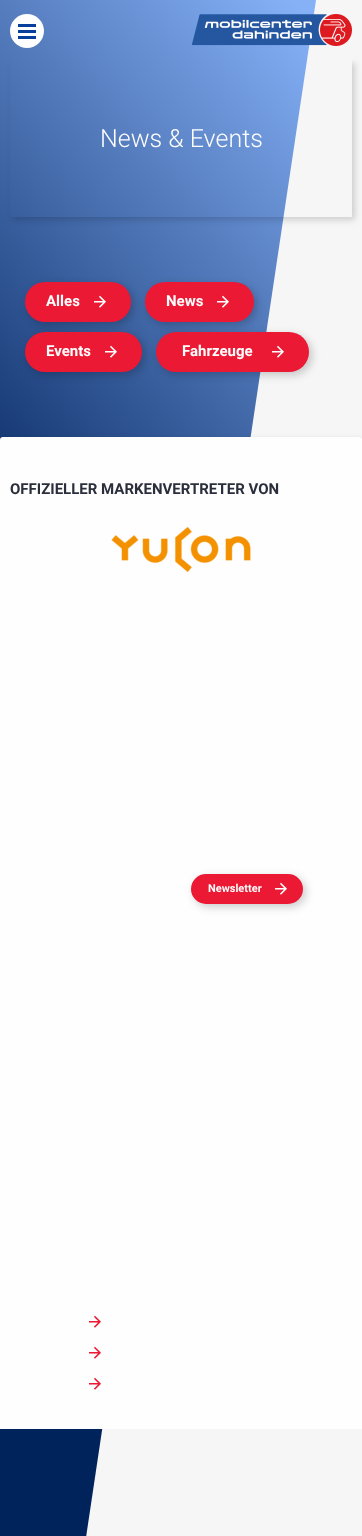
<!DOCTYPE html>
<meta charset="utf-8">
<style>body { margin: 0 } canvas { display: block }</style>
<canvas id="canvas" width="362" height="1536"></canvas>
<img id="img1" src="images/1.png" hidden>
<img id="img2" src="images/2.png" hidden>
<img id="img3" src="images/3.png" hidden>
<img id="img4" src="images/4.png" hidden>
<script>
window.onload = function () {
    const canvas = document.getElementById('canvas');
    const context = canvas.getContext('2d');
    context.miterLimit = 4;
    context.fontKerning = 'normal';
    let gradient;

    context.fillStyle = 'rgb(246, 246, 246)';
    context.fillRect(0, 0, 362, 1536);
    gradient = context.createLinearGradient(-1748, 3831, 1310, 1169);
    gradient.addColorStop(0, 'rgb(1, 35, 92)');
    gradient.addColorStop(0.85, 'rgb(1, 35, 92)');
    gradient.addColorStop(1, 'rgb(134, 177, 247)');
    context.fillStyle = gradient;
    context.beginPath();
    context.moveTo(-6, 0);
    context.lineTo(316, 0);
    context.lineTo(-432, 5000);
    context.lineTo(-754, 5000);
    context.closePath();
    context.fill();
    context.save();
    context.beginPath();
    context.moveTo(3, 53);
    context.lineTo(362, 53);
    context.lineTo(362, 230);
    context.lineTo(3, 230);
    context.closePath();
    context.moveTo(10, 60);
    context.lineTo(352, 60);
    context.lineTo(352, 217);
    context.lineTo(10, 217);
    context.closePath();
    context.clip('evenodd');
    context.fillStyle = 'rgba(0, 0, 0, 0.16)';
    context.filter = 'blur(3px)';
    context.beginPath();
    context.rect(13, 63, 342, 157);
    context.fill();
    context.filter = 'none';
    context.restore();
    context.fillStyle = 'rgb(246, 246, 246)';
    context.fillRect(307, 0, 48, 60);
    context.save();
    context.beginPath();
    context.rect(0, 0, 362, 60);
    context.clip();
    gradient = context.createLinearGradient(-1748, 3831, 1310, 1169);
    gradient.addColorStop(0, 'rgb(1, 35, 92)');
    gradient.addColorStop(0.85, 'rgb(1, 35, 92)');
    gradient.addColorStop(1, 'rgb(134, 177, 247)');
    context.fillStyle = gradient;
    context.beginPath();
    context.moveTo(-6, 0);
    context.lineTo(316, 0);
    context.lineTo(-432, 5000);
    context.lineTo(-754, 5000);
    context.closePath();
    context.fill();
    context.restore();
    context.drawImage(document.getElementById('img1'), 192, 14, 160, 32);
    context.fillStyle = 'rgb(254, 254, 254)';
    context.beginPath();
    context.arc(27, 31, 17, 0, 2 * Math.PI);
    context.fill();
    context.fillStyle = 'rgb(7, 63, 155)';
    context.fillRect(18, 30, 18, 3);
    context.fillRect(18, 24, 18, 3);
    context.fillRect(18, 36, 18, 3);
    context.fillStyle = 'rgba(0, 0, 0, 0.2)';
    context.filter = 'blur(4px)';
    context.beginPath();
    context.roundRect(28, 285, 106, 40, 20);
    context.fill();
    context.filter = 'none';
    context.fillStyle = 'rgb(235, 25, 51)';
    context.beginPath();
    context.roundRect(25, 282, 106, 40, 20);
    context.fill();
    context.drawImage(document.getElementById('img2'), 94, 295, 12, 13);
    context.fillStyle = 'rgba(0, 0, 0, 0.2)';
    context.filter = 'blur(4px)';
    context.beginPath();
    context.roundRect(148, 285, 109, 40, 20);
    context.fill();
    context.filter = 'none';
    context.fillStyle = 'rgb(235, 25, 51)';
    context.beginPath();
    context.roundRect(145, 282, 109, 40, 20);
    context.fill();
    context.drawImage(document.getElementById('img2'), 217, 295, 12, 13);
    context.fillStyle = 'rgba(0, 0, 0, 0.2)';
    context.filter = 'blur(4px)';
    context.beginPath();
    context.roundRect(28, 335, 117, 40, 20);
    context.fill();
    context.filter = 'none';
    context.fillStyle = 'rgb(235, 25, 51)';
    context.beginPath();
    context.roundRect(25, 332, 117, 40, 20);
    context.fill();
    context.drawImage(document.getElementById('img2'), 105, 345, 12, 13);
    context.fillStyle = 'rgba(0, 0, 0, 0.2)';
    context.filter = 'blur(4px)';
    context.beginPath();
    context.roundRect(159, 335, 153, 40, 20);
    context.fill();
    context.filter = 'none';
    context.fillStyle = 'rgb(235, 25, 51)';
    context.beginPath();
    context.roundRect(156, 332, 153, 40, 20);
    context.fill();
    context.drawImage(document.getElementById('img2'), 272, 345, 12, 13);
    context.fillStyle = 'rgba(0, 0, 0, 0.16)';
    context.filter = 'blur(3px)';
    context.beginPath();
    context.roundRect(3, 440, 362, 167, 3);
    context.fill();
    context.filter = 'none';
    context.fillStyle = 'rgb(254, 254, 254)';
    context.beginPath();
    context.roundRect(0, 437, 362, 167, [3, 3, 0, 0]);
    context.fill();
    context.drawImage(document.getElementById('img3'), 111, 526, 140, 47);
    context.fillRect(0, 604, 362, 825);
    context.fillStyle = 'rgba(0, 0, 0, 0.2)';
    context.filter = 'blur(4px)';
    context.beginPath();
    context.roundRect(194, 877, 112, 30, 15);
    context.fill();
    context.filter = 'none';
    context.fillStyle = 'rgb(235, 25, 51)';
    context.beginPath();
    context.roundRect(191, 874, 112, 30, 15);
    context.fill();
    context.drawImage(document.getElementById('img2'), 275, 882, 12, 13);
    context.drawImage(document.getElementById('img4'), 89, 1315, 12, 13);
    context.drawImage(document.getElementById('img4'), 89, 1346, 12, 13);
    context.drawImage(document.getElementById('img4'), 89, 1377, 12, 13);
    context.font = '300 25px Roboto';
    context.fillStyle = 'rgb(254, 254, 254)';
    context.fillText('News & Events', 100, 147);
    context.font = 'bold 15px Roboto';
    context.fillText('Alles', 46, 306);
    context.fillText('News', 166, 306);
    context.fillText('Events', 46, 356);
    context.fillText('Fahrzeuge', 182, 356);
    context.fillStyle = 'rgb(43, 47, 59)';
    context.fillText('OFFIZIELLER MARKENVERTRETER VON', 10, 494);
    context.font = 'bold 11px Roboto';
    context.fillStyle = 'rgb(254, 254, 254)';
    context.fillText('Newsletter', 208, 892);
};
</script>
